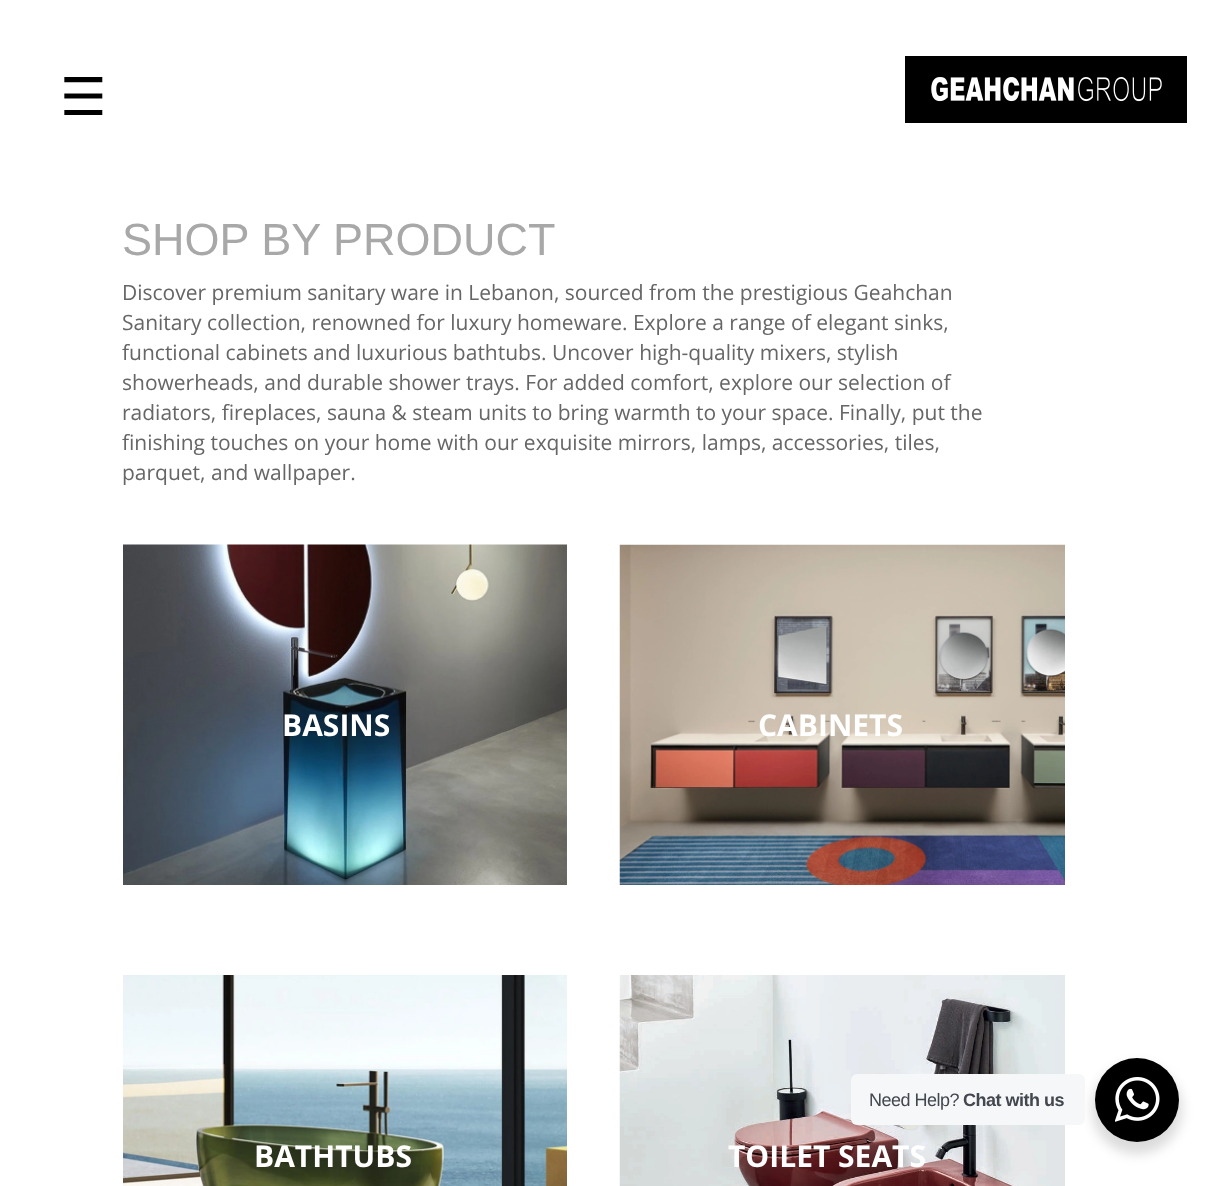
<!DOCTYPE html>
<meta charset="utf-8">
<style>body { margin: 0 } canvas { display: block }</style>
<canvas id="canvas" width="1223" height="1186"></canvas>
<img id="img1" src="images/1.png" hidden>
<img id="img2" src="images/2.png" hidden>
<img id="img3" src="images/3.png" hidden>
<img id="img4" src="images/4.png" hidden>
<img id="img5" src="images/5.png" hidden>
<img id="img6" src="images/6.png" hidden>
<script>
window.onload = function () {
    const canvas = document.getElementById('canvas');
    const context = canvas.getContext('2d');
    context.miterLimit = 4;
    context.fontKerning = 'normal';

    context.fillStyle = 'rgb(255, 255, 255)';
    context.fillRect(0, 0, 1223, 1186);
    context.drawImage(document.getElementById('img1'), 905, 56, 282, 67);
    context.drawImage(document.getElementById('img2'), 123, 544, 444, 341);
    context.drawImage(document.getElementById('img3'), 619, 544, 446, 341);
    context.drawImage(document.getElementById('img4'), 123, 975, 444, 211);
    context.drawImage(document.getElementById('img5'), 619, 975, 446, 211);
    context.fillStyle = 'rgba(0, 0, 0, 0.14)';
    context.filter = 'blur(6px)';
    context.beginPath();
    context.roundRect(1092, 1064, 90, 90, 45);
    context.fill();
    context.filter = 'none';
    context.fillStyle = 'rgb(245, 247, 249)';
    context.beginPath();
    context.roundRect(851, 1074, 234, 51, 6);
    context.fill();
    context.fillStyle = 'rgb(0, 0, 0)';
    context.beginPath();
    context.arc(1137, 1100, 42, 0, 2 * Math.PI);
    context.fill();
    context.drawImage(document.getElementById('img6'), 1115, 1077, 45, 45);
    context.font = '52px DejaVu Sans';
    context.fillText('☰', 60, 115);
    context.font = '45px Liberation Sans';
    context.fillStyle = 'rgb(168, 168, 168)';
    context.fillText('SHOP BY PRODUCT', 122, 255);
    context.font = '21px Open Sans';
    context.fillStyle = 'rgb(102, 102, 102)';
    context.fillText('Discover premium sanitary ware in Lebanon, sourced from the prestigious Geahchan', 122, 300);
    context.fillText('Sanitary collection, renowned for luxury homeware. Explore a range of elegant sinks,', 122, 330);
    context.fillText('functional cabinets and luxurious bathtubs. Uncover high-quality mixers, stylish', 122, 360);
    context.fillText('showerheads, and durable shower trays. For added comfort, explore our selection of', 122, 390);
    context.fillText('radiators, fireplaces, sauna & steam units to bring warmth to your space. Finally, put the', 122, 420);
    context.fillText('finishing touches on your home with our exquisite mirrors, lamps, accessories, tiles,', 122, 450);
    context.fillText('parquet, and wallpaper.', 122, 480);
    context.font = 'bold 30px Open Sans';
    context.fillStyle = 'rgb(255, 255, 255)';
    context.fillText('BASINS', 282, 736);
    context.fillText('CABINETS', 758, 736);
    context.fillText('BATHTUBS', 254, 1167);
    context.fillText('TOILET SEATS', 728, 1167);
    context.letterSpacing = '-0.5px';
    context.font = '18px Liberation Sans';
    context.fillStyle = 'rgb(67, 71, 78)';
    context.fillText('Need Help?', 869, 1106);
    context.font = 'bold 18px Liberation Sans';
    context.fillText('Chat with us', 963, 1106);
};
</script>
